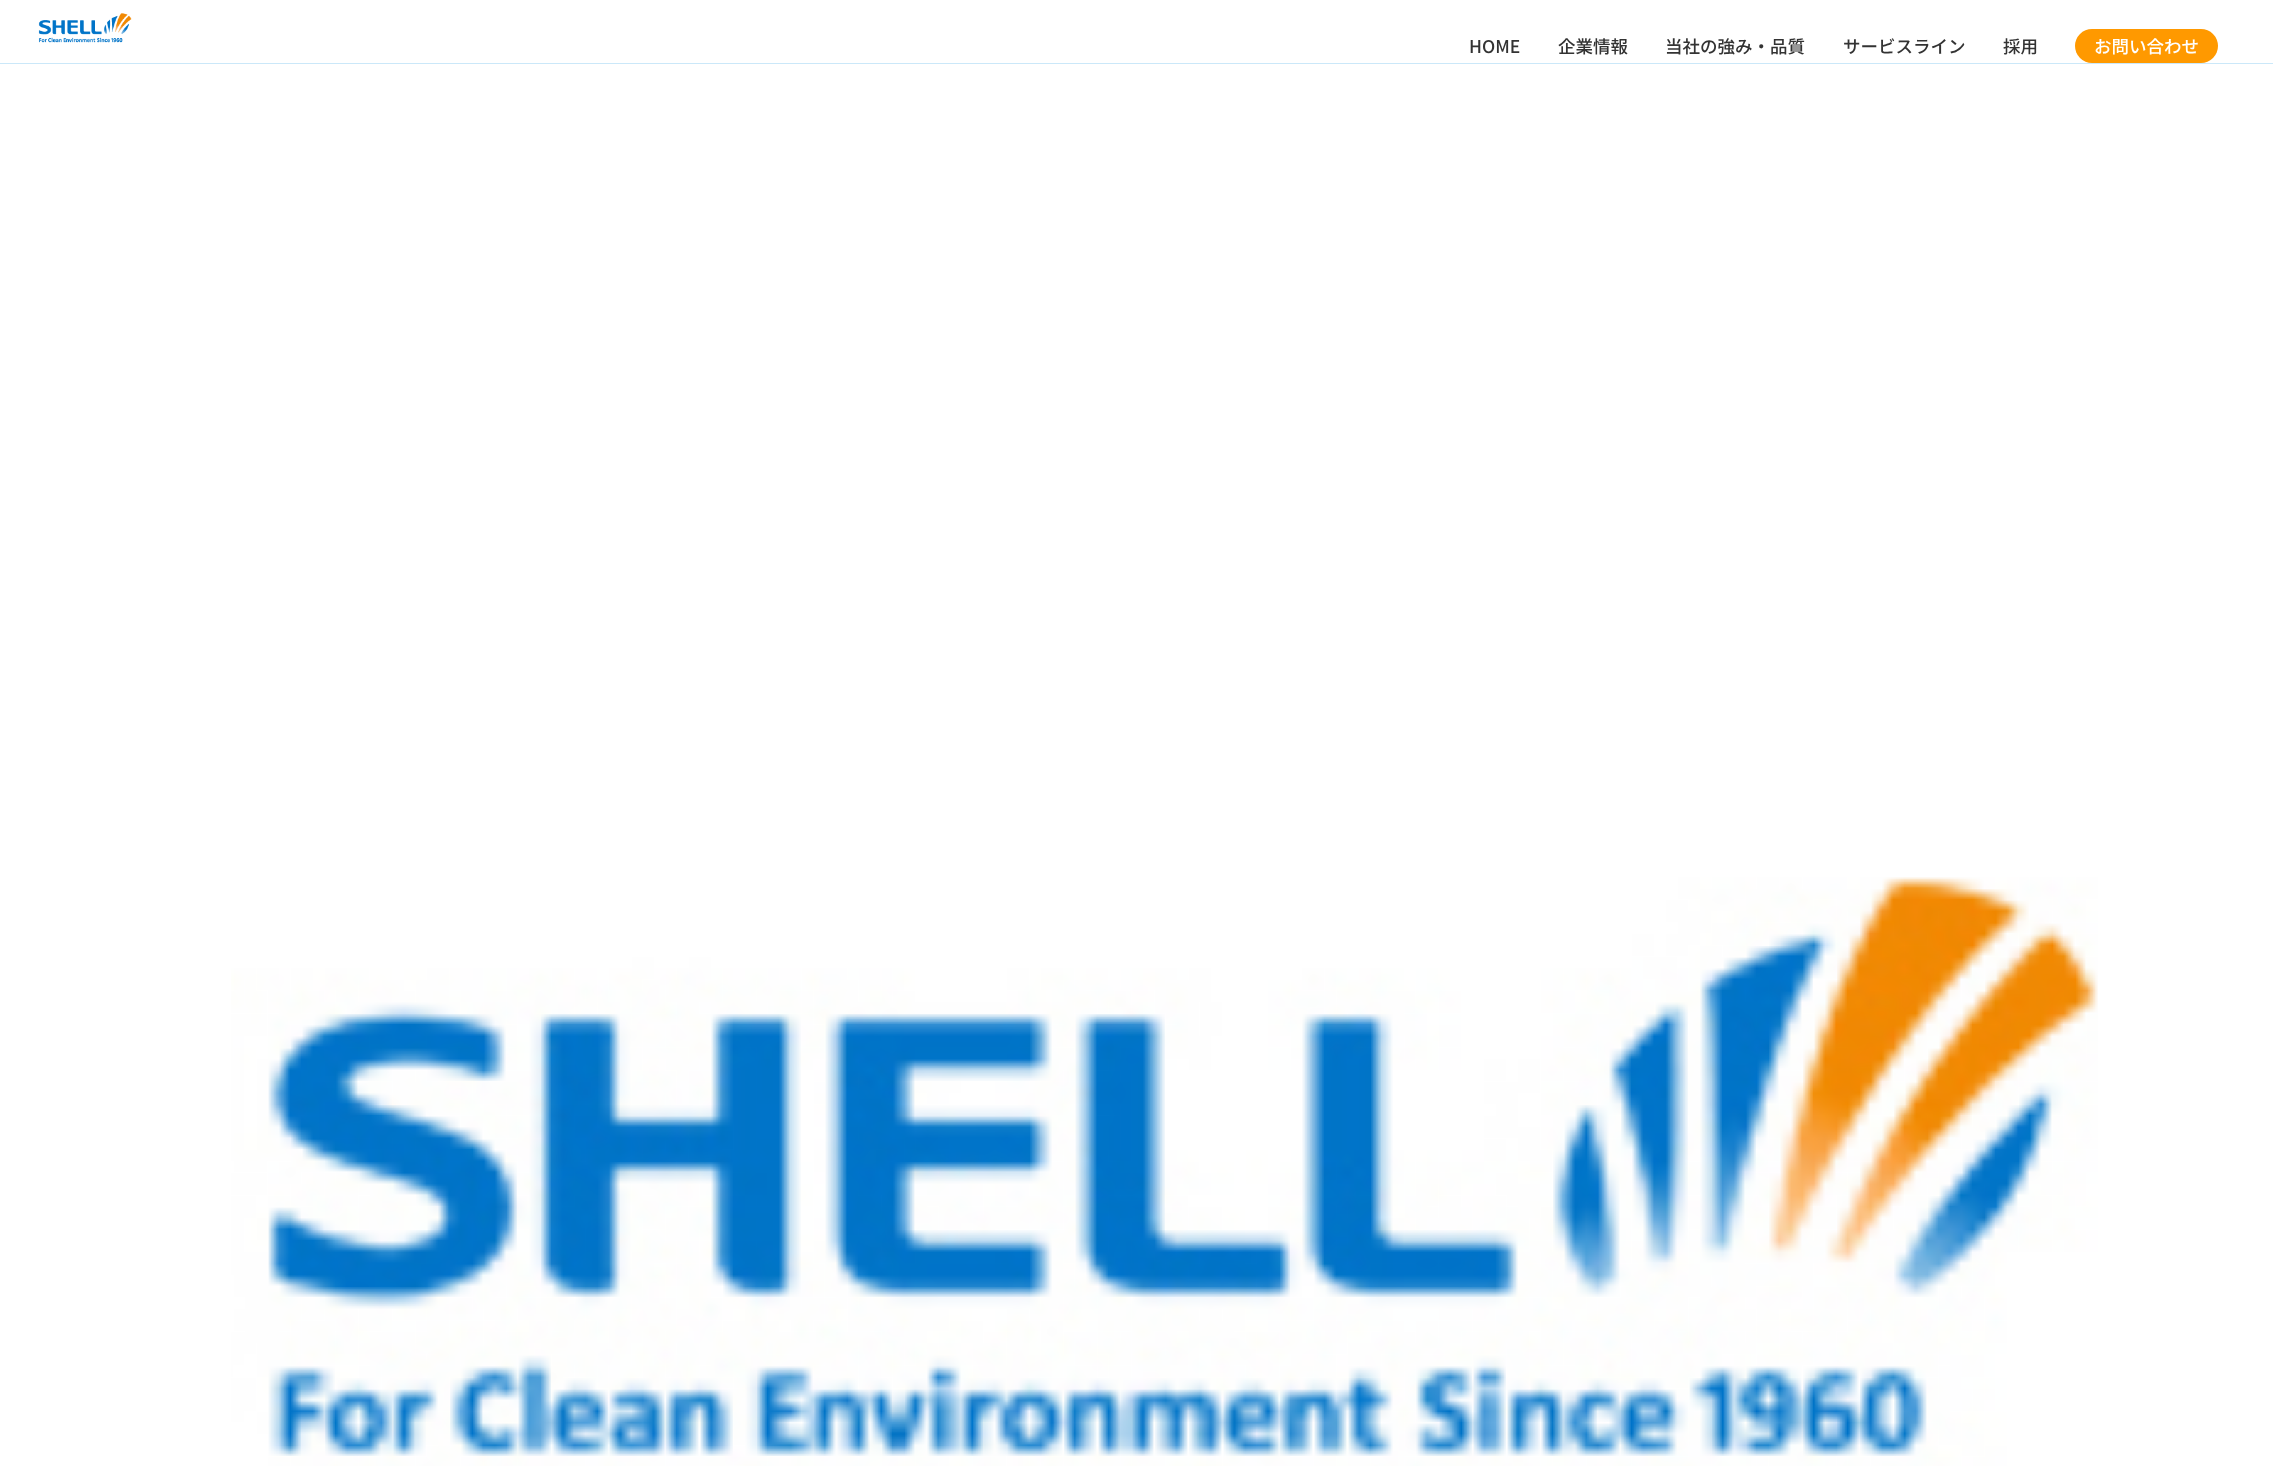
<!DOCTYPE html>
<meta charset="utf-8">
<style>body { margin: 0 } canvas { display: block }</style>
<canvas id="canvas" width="2273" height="1466"></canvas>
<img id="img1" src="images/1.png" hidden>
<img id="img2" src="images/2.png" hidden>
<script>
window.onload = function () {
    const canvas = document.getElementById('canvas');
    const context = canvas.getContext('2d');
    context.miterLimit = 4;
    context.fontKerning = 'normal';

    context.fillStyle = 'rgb(255, 255, 255)';
    context.fillRect(0, 0, 2273, 1466);
    context.fillStyle = 'rgb(203, 232, 249)';
    context.fillRect(0, 63, 2273, 1);
    context.drawImage(document.getElementById('img1'), 38, 13, 94, 30);
    context.fillStyle = 'rgb(255, 153, 0)';
    context.beginPath();
    context.roundRect(2075, 29, 143, 34, 17);
    context.fill();
    context.drawImage(document.getElementById('img2'), 231, 877, 1867, 589);
    context.font = '500 17.5px Noto Sans JP';
    context.fillStyle = 'rgb(51, 51, 51)';
    context.fillText('HOME', 1469, 53);
    context.fillText('企業情報', 1558, 53);
    context.fillText('当社の強み・品質', 1665, 53);
    context.fillText('サービスライン', 1843, 53);
    context.fillText('採用', 2003, 53);
    context.fillStyle = 'rgb(255, 255, 255)';
    context.fillText('お問い合わせ', 2094, 53);
};
</script>
